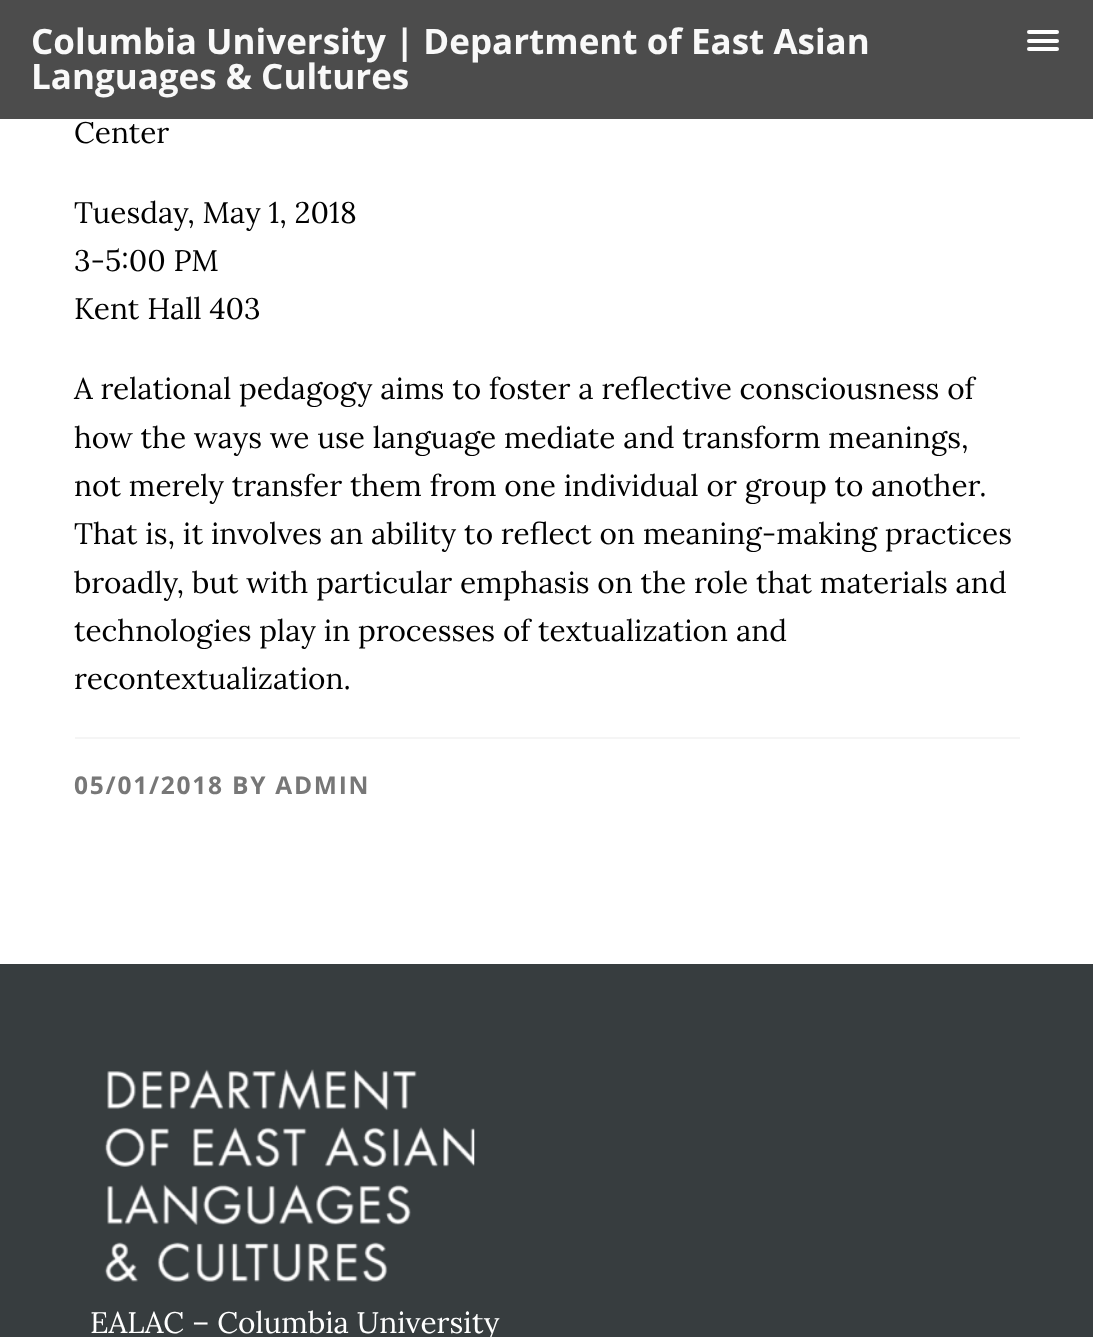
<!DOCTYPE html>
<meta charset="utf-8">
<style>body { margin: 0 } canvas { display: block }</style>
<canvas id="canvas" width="1093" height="1337"></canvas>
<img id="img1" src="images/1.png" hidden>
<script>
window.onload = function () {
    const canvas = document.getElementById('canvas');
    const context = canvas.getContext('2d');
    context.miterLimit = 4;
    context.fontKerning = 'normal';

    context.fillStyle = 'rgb(255, 255, 255)';
    context.fillRect(0, 0, 1093, 1337);
    context.fillStyle = 'rgb(76, 76, 76)';
    context.fillRect(0, 0, 1093, 119);
    context.fillStyle = 'rgb(255, 255, 255)';
    context.beginPath();
    context.roundRect(1027, 30, 32, 4, 2);
    context.fill();
    context.beginPath();
    context.roundRect(1027, 39, 32, 4, 2);
    context.fill();
    context.beginPath();
    context.roundRect(1027, 47, 32, 4, 2);
    context.fill();
    context.fillStyle = 'rgb(245, 245, 245)';
    context.fillRect(75, 737, 945, 2);
    context.fillStyle = 'rgb(55, 61, 63)';
    context.fillRect(0, 964, 1093, 373);
    context.drawImage(document.getElementById('img1'), 104, 1069, 371, 213);
    context.font = 'bold 35px Open Sans';
    context.fillStyle = 'rgb(249, 249, 249)';
    context.fillText('Columbia University | Department of East Asian', 31, 54);
    context.fillText('Languages & Cultures', 31, 89);
    context.font = '29.75px Lora';
    context.fillStyle = 'rgb(0, 0, 0)';
    context.fillText('Center', 74, 143);
    context.fillText('Tuesday, May 1, 2018', 74, 223);
    context.fillText('3-5:00 PM', 74, 271);
    context.fillText('Kent Hall 403', 74, 319);
    context.fillText('A relational pedagogy aims to foster a reflective consciousness of', 74, 399);
    context.fillText('how the ways we use language mediate and transform meanings,', 74, 448);
    context.fillText('not merely transfer them from one individual or group to another.', 74, 496);
    context.fillText('That is, it involves an ability to reflect on meaning-making practices', 74, 544);
    context.fillText('broadly, but with particular emphasis on the role that materials and', 74, 593);
    context.fillText('technologies play in processes of textualization and', 74, 641);
    context.fillText('recontextualization.', 74, 689);
    context.letterSpacing = '1.75px';
    context.font = 'bold 24.5px Open Sans';
    context.fillStyle = 'rgb(119, 119, 119)';
    context.fillText('05/01/2018 BY ADMIN', 74, 794);
    context.letterSpacing = '0px';
    context.font = '29.75px Lora';
    context.fillStyle = 'rgb(255, 255, 255)';
    context.fillText('EALAC – Columbia University', 90, 1333);
};
</script>
